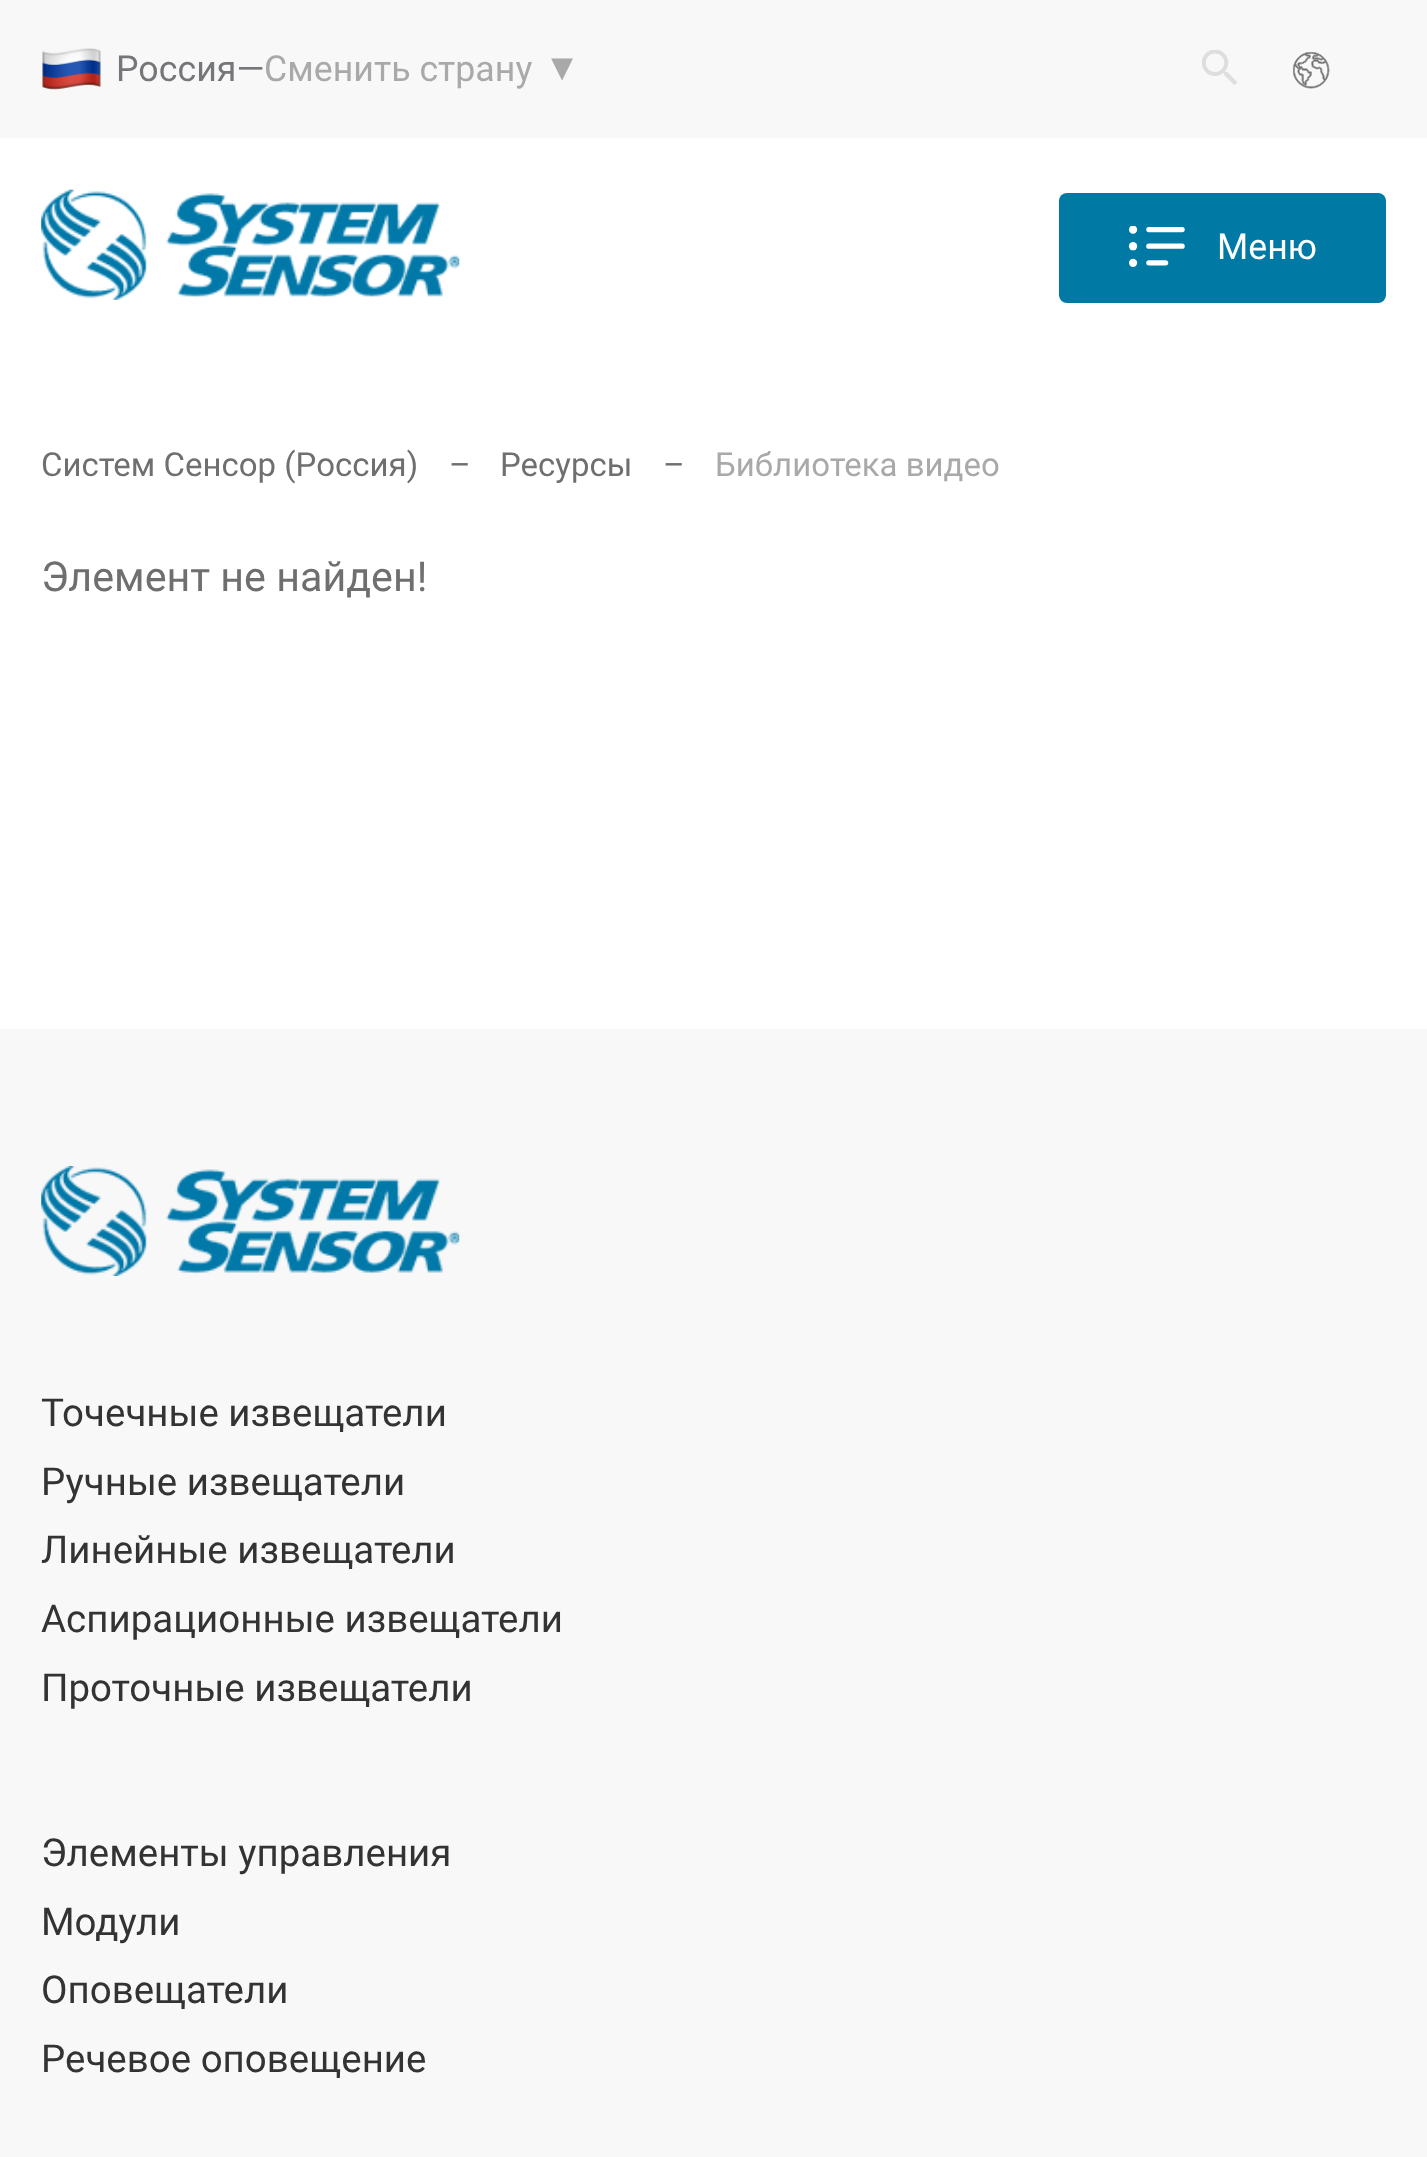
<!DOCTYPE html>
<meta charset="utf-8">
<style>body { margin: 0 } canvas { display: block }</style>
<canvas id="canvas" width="1427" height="2157"></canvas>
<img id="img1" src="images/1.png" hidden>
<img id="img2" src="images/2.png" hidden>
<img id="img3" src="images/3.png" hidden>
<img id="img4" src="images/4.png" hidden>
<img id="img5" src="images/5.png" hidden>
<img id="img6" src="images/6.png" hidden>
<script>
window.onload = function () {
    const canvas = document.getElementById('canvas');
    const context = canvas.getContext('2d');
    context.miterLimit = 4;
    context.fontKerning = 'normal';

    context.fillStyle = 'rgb(255, 255, 255)';
    context.fillRect(0, 0, 1427, 2157);
    context.fillStyle = 'rgb(248, 248, 248)';
    context.fillRect(0, 0, 1427, 138);
    context.drawImage(document.getElementById('img1'), 42, 48, 59, 42);
    context.drawImage(document.getElementById('img2'), 1202, 50, 35, 35);
    context.drawImage(document.getElementById('img3'), 1293, 52, 37, 37);
    context.drawImage(document.getElementById('img4'), 41, 189, 419, 111);
    context.fillStyle = 'rgb(0, 122, 165)';
    context.beginPath();
    context.roundRect(1059, 193, 327, 110, 8);
    context.fill();
    context.drawImage(document.getElementById('img5'), 1128, 226, 57, 41);
    context.fillStyle = 'rgb(248, 248, 248)';
    context.fillRect(0, 1029, 1427, 1128);
    context.drawImage(document.getElementById('img6'), 41, 1166, 419, 110);
    context.font = '35.75px Roboto';
    context.fillStyle = 'rgb(116, 118, 121)';
    context.fillText('Россия—', 116, 81);
    context.fillStyle = 'rgb(169, 169, 169)';
    context.fillText('Сменить страну', 264, 81);
    context.font = '44px DejaVu Sans';
    context.fillText('▾', 551, 81);
    context.font = '35.75px Roboto';
    context.fillStyle = 'rgb(255, 255, 255)';
    context.fillText('Меню', 1217, 259);
    context.font = '33px Roboto';
    context.fillStyle = 'rgb(111, 111, 111)';
    context.fillText('Систем Сенсор (Россия)', 41, 476);
    context.fillText('–', 449, 476);
    context.fillText('Ресурсы', 500, 476);
    context.fillText('–', 663, 476);
    context.fillStyle = 'rgb(169, 169, 169)';
    context.fillText('Библиотека видео', 715, 476);
    context.font = '41.25px Roboto';
    context.fillStyle = 'rgb(111, 111, 111)';
    context.fillText('Элемент не найден!', 41, 591);
    context.font = '38.5px Roboto';
    context.fillStyle = 'rgb(51, 51, 51)';
    context.fillText('Точечные извещатели', 41, 1426);
    context.fillText('Ручные извещатели', 41, 1495);
    context.fillText('Линейные извещатели', 41, 1563);
    context.fillText('Аспирационные извещатели', 41, 1632);
    context.fillText('Проточные извещатели', 41, 1701);
    context.fillText('Элементы управления', 41, 1866);
    context.fillText('Модули', 41, 1935);
    context.fillText('Оповещатели', 41, 2003);
    context.fillText('Речевое оповещение', 41, 2072);
};
</script>
